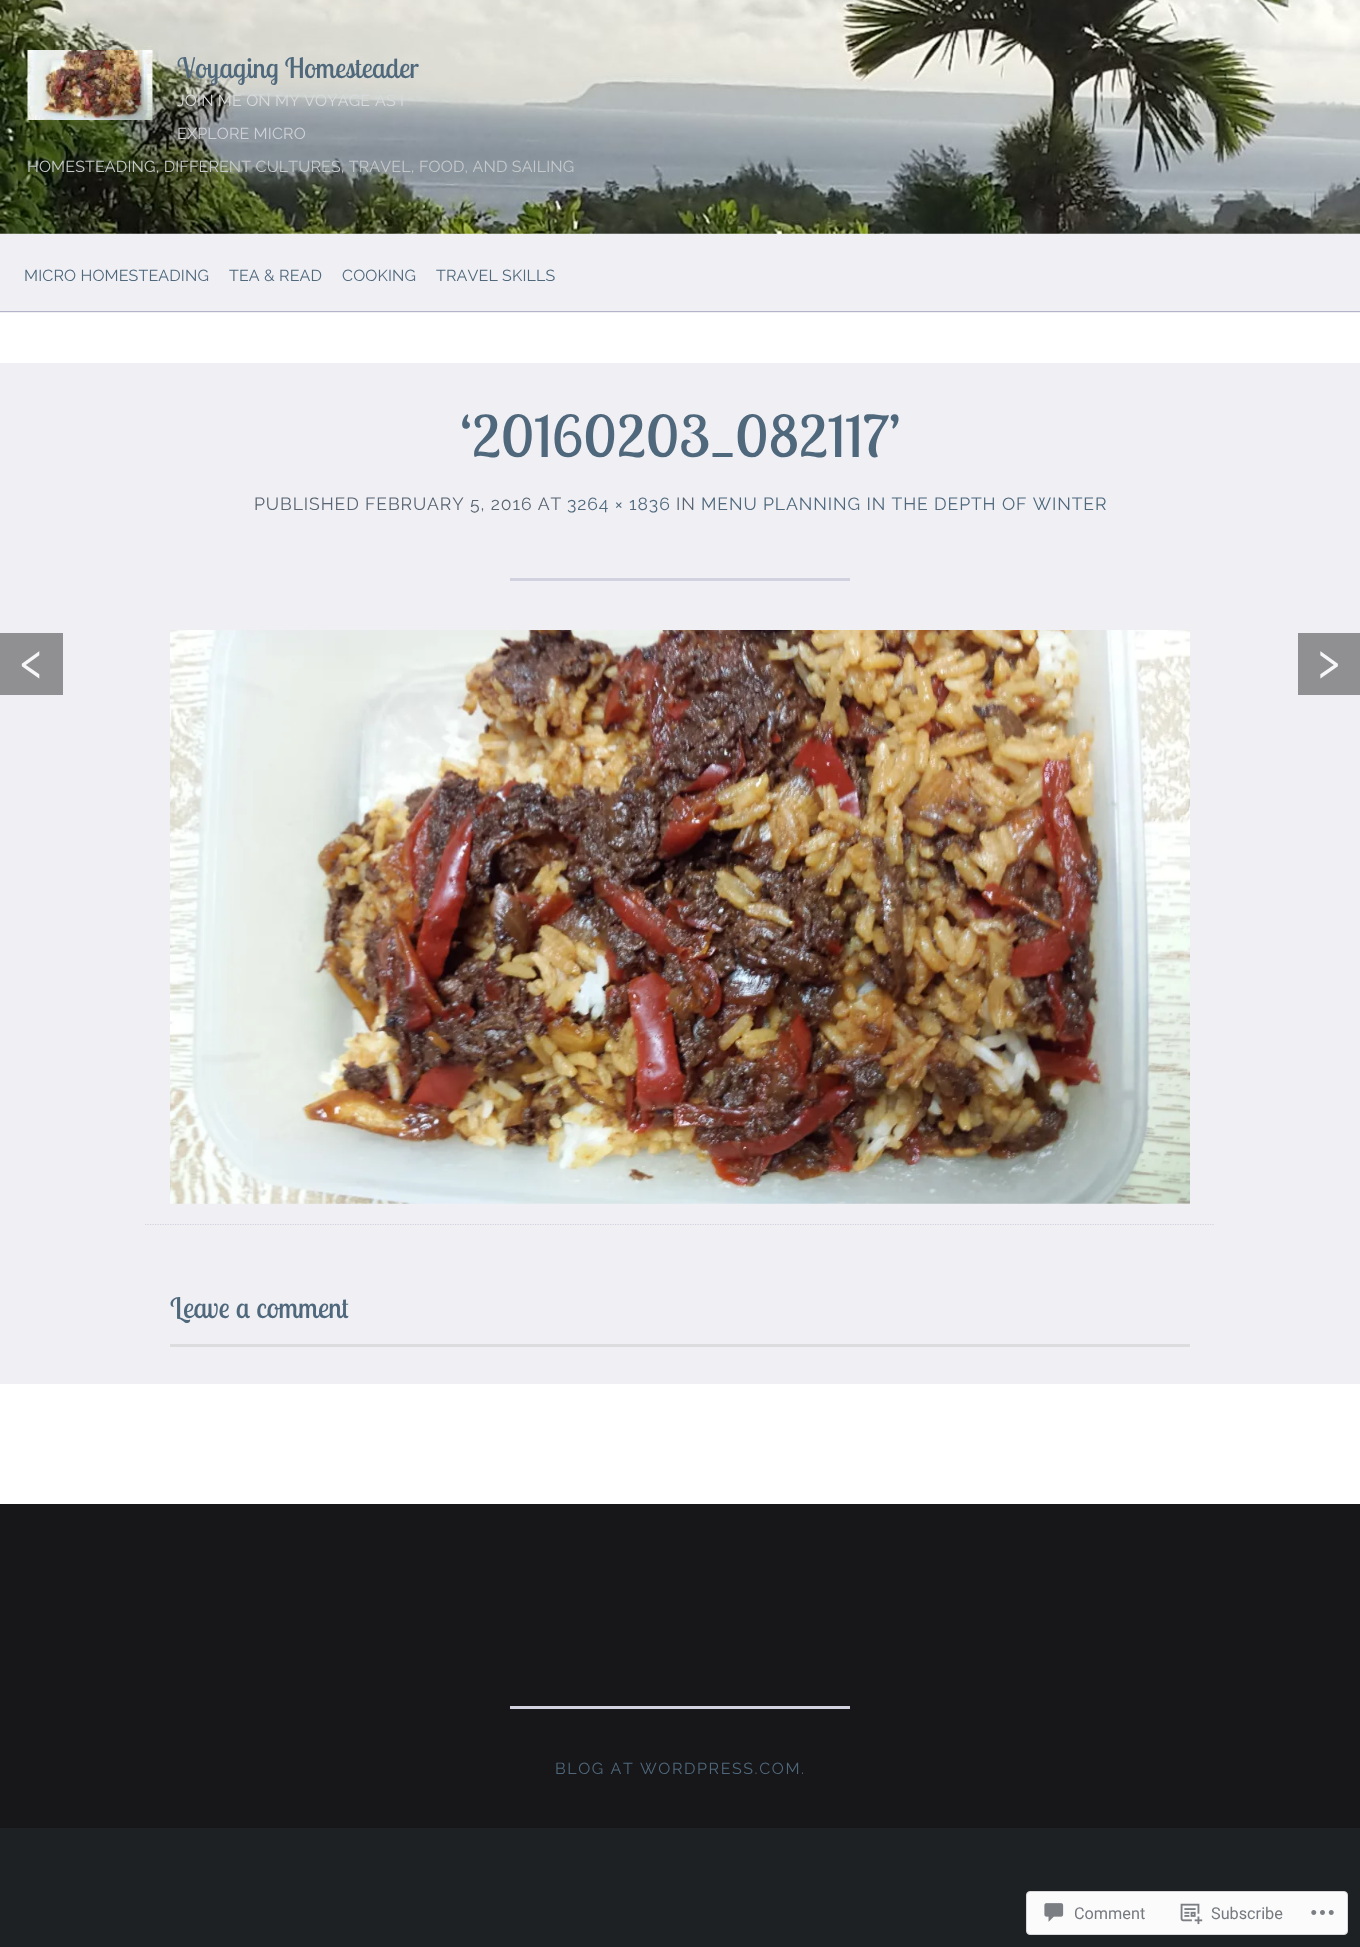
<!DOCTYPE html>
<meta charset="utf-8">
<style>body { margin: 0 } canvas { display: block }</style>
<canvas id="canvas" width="1360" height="1947"></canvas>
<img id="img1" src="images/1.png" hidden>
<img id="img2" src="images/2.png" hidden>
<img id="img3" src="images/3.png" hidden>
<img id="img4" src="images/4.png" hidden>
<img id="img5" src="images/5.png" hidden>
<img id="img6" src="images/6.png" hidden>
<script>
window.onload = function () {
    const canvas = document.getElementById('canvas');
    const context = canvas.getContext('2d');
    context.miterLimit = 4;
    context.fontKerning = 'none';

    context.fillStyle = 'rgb(30, 33, 35)';
    context.fillRect(0, 0, 1360, 1947);
    context.fillStyle = 'rgb(255, 255, 255)';
    context.fillRect(0, 233, 1360, 1271);
    context.drawImage(document.getElementById('img1'), 0, 0, 1360, 234);
    context.drawImage(document.getElementById('img2'), 27, 50, 126, 70);
    context.fillStyle = 'rgb(239, 239, 244)';
    context.fillRect(0, 234, 1360, 79);
    context.fillStyle = 'rgb(179, 179, 203)';
    context.fillRect(0, 311, 1360, 1);
    context.fillStyle = 'rgb(239, 239, 244)';
    context.fillRect(0, 363, 1360, 1021);
    context.fillStyle = 'rgb(209, 209, 224)';
    context.fillRect(510, 578, 340, 3);
    context.drawImage(document.getElementById('img3'), 170, 630, 1020, 574);
    context.beginPath();
    context.moveTo(145, 1224.5);
    context.lineTo(1215, 1224.5);
    context.strokeStyle = 'rgb(209, 209, 224)';
    context.lineWidth = 1.2;
    context.setLineDash([1.25, 1.25]);
    context.stroke();
    context.fillStyle = 'rgb(220, 220, 222)';
    context.fillRect(170, 1344, 1020, 3);
    context.fillStyle = 'rgb(144, 144, 146)';
    context.fillRect(0, 633, 63, 62);
    context.fillRect(1298, 633, 62, 62);
    context.fillStyle = 'rgb(23, 23, 25)';
    context.fillRect(0, 1504, 1360, 324);
    context.fillStyle = 'rgb(209, 209, 224)';
    context.fillRect(510, 1706, 340, 3);
    context.fillStyle = 'rgb(251, 251, 251)';
    context.beginPath();
    context.roundRect(1026.5, 1891.5, 321, 43, 3.5);
    context.fill();
    context.strokeStyle = 'rgb(216, 216, 218)';
    context.lineWidth = 1;
    context.setLineDash([]);
    context.stroke();
    context.drawImage(document.getElementById('img4'), 1044, 1903, 20, 19);
    context.drawImage(document.getElementById('img5'), 1180, 1903, 23, 22);
    context.drawImage(document.getElementById('img6'), 1311, 1910, 23, 5);
    context.font = '28px Lobster Two';
    context.fillStyle = 'rgb(79, 104, 124)';
    context.fillText('Voyaging Homesteader', 177, 78);
    context.letterSpacing = '0.15px';
    context.font = '16px Raleway';
    context.fillStyle = 'rgb(217, 218, 221)';
    context.fillText('JOIN ME ON MY VOYAGE', 177, 106);
    context.fillText('AS I', 375, 106);
    context.fillStyle = 'rgb(207, 209, 214)';
    context.fillText('EXPLORE MICRO', 177, 139);
    context.fillStyle = 'rgb(198, 201, 202)';
    context.fillText('HOMESTEADING, DIFFERENT CULTURES, TRAVEL,', 27, 172);
    context.fillText('FOOD, AND SAILING', 419, 172);
    context.fillStyle = 'rgb(79, 104, 124)';
    context.fillText('MICRO HOMESTEADING', 24, 281);
    context.fillText('TEA & READ', 229, 281);
    context.fillText('COOKING', 342, 281);
    context.fillText('TRAVEL SKILLS', 436, 281);
    context.letterSpacing = '0px';
    context.font = '57.25px Lobster Two';
    context.fillText('‘20160203_082117’', 460, 457);
    context.letterSpacing = '0.9px';
    context.font = '17.6px Raleway';
    context.fillStyle = 'rgb(89, 101, 114)';
    context.fillText('PUBLISHED FEBRUARY 5, 2016 AT', 254, 510);
    context.fillStyle = 'rgb(79, 104, 124)';
    context.fillText('3264 × 1836', 567, 510);
    context.fillStyle = 'rgb(89, 101, 114)';
    context.fillText('IN', 676, 510);
    context.fillStyle = 'rgb(79, 104, 124)';
    context.fillText('MENU PLANNING IN THE DEPTH OF WINTER', 701, 510);
    context.letterSpacing = '0px';
    context.font = '28.5px Lobster Two';
    context.fillText('Leave a comment', 170, 1318);
    context.font = '70px Raleway';
    context.fillStyle = 'rgb(247, 247, 250)';
    context.fillText('‹', 19, 683);
    context.fillText('›', 1316, 683);
    context.letterSpacing = '1.6px';
    context.font = '16px Raleway';
    context.fillStyle = 'rgb(79, 104, 124)';
    context.fillText('BLOG AT WORDPRESS.COM.', 555, 1774);
    context.letterSpacing = '0px';
    context.font = '16.25px Roboto';
    context.fillStyle = 'rgb(118, 122, 128)';
    context.fillText('Comment', 1074, 1919);
    context.fillText('Subscribe', 1211, 1919);
};
</script>
